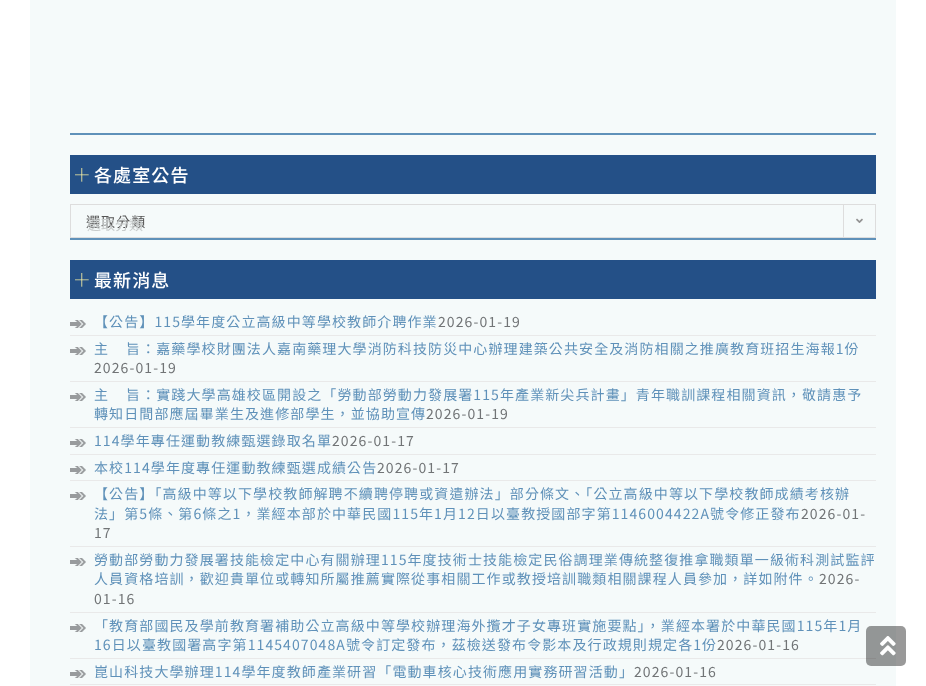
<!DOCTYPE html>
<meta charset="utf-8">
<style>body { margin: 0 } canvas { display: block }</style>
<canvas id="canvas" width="926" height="686"></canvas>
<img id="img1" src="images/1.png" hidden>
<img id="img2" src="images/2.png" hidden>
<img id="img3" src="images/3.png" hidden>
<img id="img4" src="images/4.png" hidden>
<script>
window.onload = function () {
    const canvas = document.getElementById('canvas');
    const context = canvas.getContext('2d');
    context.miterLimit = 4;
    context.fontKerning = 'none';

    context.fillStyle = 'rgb(255, 255, 255)';
    context.fillRect(0, 0, 926, 686);
    context.fillStyle = 'rgb(245, 250, 250)';
    context.fillRect(30, 0, 866, 686);
    context.fillStyle = 'rgb(95, 145, 185)';
    context.fillRect(70, 133, 806, 2);
    context.fillRect(70, 238, 806, 2);
    context.fillStyle = 'rgb(36, 80, 135)';
    context.fillRect(70, 155, 806, 39);
    context.drawImage(document.getElementById('img1'), 75, 168, 14, 14);
    context.strokeStyle = 'rgb(221, 221, 221)';
    context.strokeRect(70.5, 204.5, 805, 33);
    context.fillStyle = 'rgb(221, 221, 221)';
    context.fillRect(843, 205, 1, 32);
    context.drawImage(document.getElementById('img2'), 856, 218, 7, 5);
    context.fillStyle = 'rgb(36, 80, 135)';
    context.fillRect(70, 260, 806, 39);
    context.drawImage(document.getElementById('img1'), 75, 273, 14, 14);
    context.drawImage(document.getElementById('img3'), 70, 320, 16, 8);
    context.fillStyle = 'rgb(233, 233, 233)';
    context.fillRect(70, 335, 806, 1);
    context.drawImage(document.getElementById('img3'), 70, 347, 16, 8);
    context.fillRect(70, 381, 806, 1);
    context.drawImage(document.getElementById('img3'), 70, 393, 16, 8);
    context.fillRect(70, 427, 806, 1);
    context.drawImage(document.getElementById('img3'), 70, 439, 16, 8);
    context.fillRect(70, 454, 806, 1);
    context.drawImage(document.getElementById('img3'), 70, 466, 16, 8);
    context.fillRect(70, 480, 806, 1);
    context.drawImage(document.getElementById('img3'), 70, 492, 16, 8);
    context.fillRect(70, 546, 806, 1);
    context.drawImage(document.getElementById('img3'), 70, 558, 16, 8);
    context.fillRect(70, 612, 806, 1);
    context.drawImage(document.getElementById('img3'), 70, 624, 16, 8);
    context.fillRect(70, 658, 806, 1);
    context.drawImage(document.getElementById('img3'), 70, 670, 16, 8);
    context.fillRect(70, 684, 806, 1);
    context.fillStyle = 'rgba(0, 0, 0, 0.4)';
    context.beginPath();
    context.roundRect(866, 626, 40, 40, 5);
    context.fill();
    context.drawImage(document.getElementById('img4'), 880, 636, 16, 20);
    context.letterSpacing = '1.1px';
    context.font = '500 18px Noto Sans TC';
    context.fillStyle = 'rgb(255, 255, 255)';
    context.fillText('各處室公告', 94, 182);
    context.font = '14px Noto Sans TC';
    context.fillStyle = 'rgb(85, 85, 85)';
    context.fillText('選取分類', 86, 227);
    context.letterSpacing = '0px';
    context.fillStyle = 'rgb(199, 203, 203)';
    context.fillText('選取分類', 87, 230);
    context.letterSpacing = '1.1px';
    context.font = '500 18px Noto Sans TC';
    context.fillStyle = 'rgb(255, 255, 255)';
    context.fillText('最新消息', 94, 287);
    context.font = '14px Noto Sans TC';
    context.fillStyle = 'rgb(95, 145, 185)';
    context.fillText('【公告】115學年度公立高級中等學校教師介聘作業', 94, 327);
    context.fillStyle = 'rgb(113, 116, 118)';
    context.fillText('2026-01-19', 438, 327);
    context.fillStyle = 'rgb(95, 145, 185)';
    context.fillText('主    旨：嘉藥學校財團法人嘉南藥理大學消防科技防災中心辦理建築公共安全及消防相關之推廣教育班招生海報1份', 94, 354);
    context.fillStyle = 'rgb(113, 116, 118)';
    context.fillText('2026-01-19', 94, 373);
    context.fillStyle = 'rgb(95, 145, 185)';
    context.fillText('主    旨：實踐大學高雄校區開設之「勞動部勞動力發展署115年產業新尖兵計畫」青年職訓課程相關資訊，敬請惠予', 94, 400);
    context.fillText('轉知日間部應屆畢業生及進修部學生，並協助宣傳', 94, 419);
    context.fillStyle = 'rgb(113, 116, 118)';
    context.fillText('2026-01-19', 426, 419);
    context.fillStyle = 'rgb(95, 145, 185)';
    context.fillText('114學年專任運動教練甄選錄取名單', 94, 446);
    context.fillStyle = 'rgb(113, 116, 118)';
    context.fillText('2026-01-17', 332, 446);
    context.fillStyle = 'rgb(95, 145, 185)';
    context.fillText('本校114學年度專任運動教練甄選成績公告', 94, 473);
    context.fillStyle = 'rgb(113, 116, 118)';
    context.fillText('2026-01-17', 377, 473);
    context.fillStyle = 'rgb(95, 145, 185)';
    context.fillText('【公告】「高級中等以下學校教師解聘不續聘停聘或資遣辦法」部分條文、「公立高級中等以下學校教師成績考核辦', 94, 499);
    context.fillText('法」第5條、第6條之1，業經本部於中華民國115年1月12日以臺教授國部字第1146004422A號令修正發布', 94, 519);
    context.fillStyle = 'rgb(113, 116, 118)';
    context.fillText('2026-01-', 801, 519);
    context.fillText('17', 94, 538);
    context.fillStyle = 'rgb(95, 145, 185)';
    context.fillText('勞動部勞動力發展署技能檢定中心有關辦理115年度技術士技能檢定民俗調理業傳統整復推拿職類單一級術科測試監評', 94, 565);
    context.fillText('人員資格培訓，歡迎貴單位或轉知所屬推薦實際從事相關工作或教授培訓職類相關課程人員參加，詳如附件。', 94, 584);
    context.fillStyle = 'rgb(113, 116, 118)';
    context.fillText('2026-', 819, 584);
    context.fillText('01-16', 94, 604);
    context.fillStyle = 'rgb(95, 145, 185)';
    context.fillText('「教育部國民及學前教育署補助公立高級中等學校辦理海外攬才子女專班實施要點」，業經本署於中華民國115年1月', 94, 631);
    context.fillText('16日以臺教國署高字第1145407048A號令訂定發布，茲檢送發布令影本及行政規則規定各1份', 94, 650);
    context.fillStyle = 'rgb(113, 116, 118)';
    context.fillText('2026-01-16', 717, 650);
    context.fillStyle = 'rgb(95, 145, 185)';
    context.fillText('崑山科技大學辦理114學年度教師產業研習「電動車核心技術應用實務研習活動」', 94, 677);
    context.fillStyle = 'rgb(113, 116, 118)';
    context.fillText('2026-01-16', 634, 677);
};
</script>
